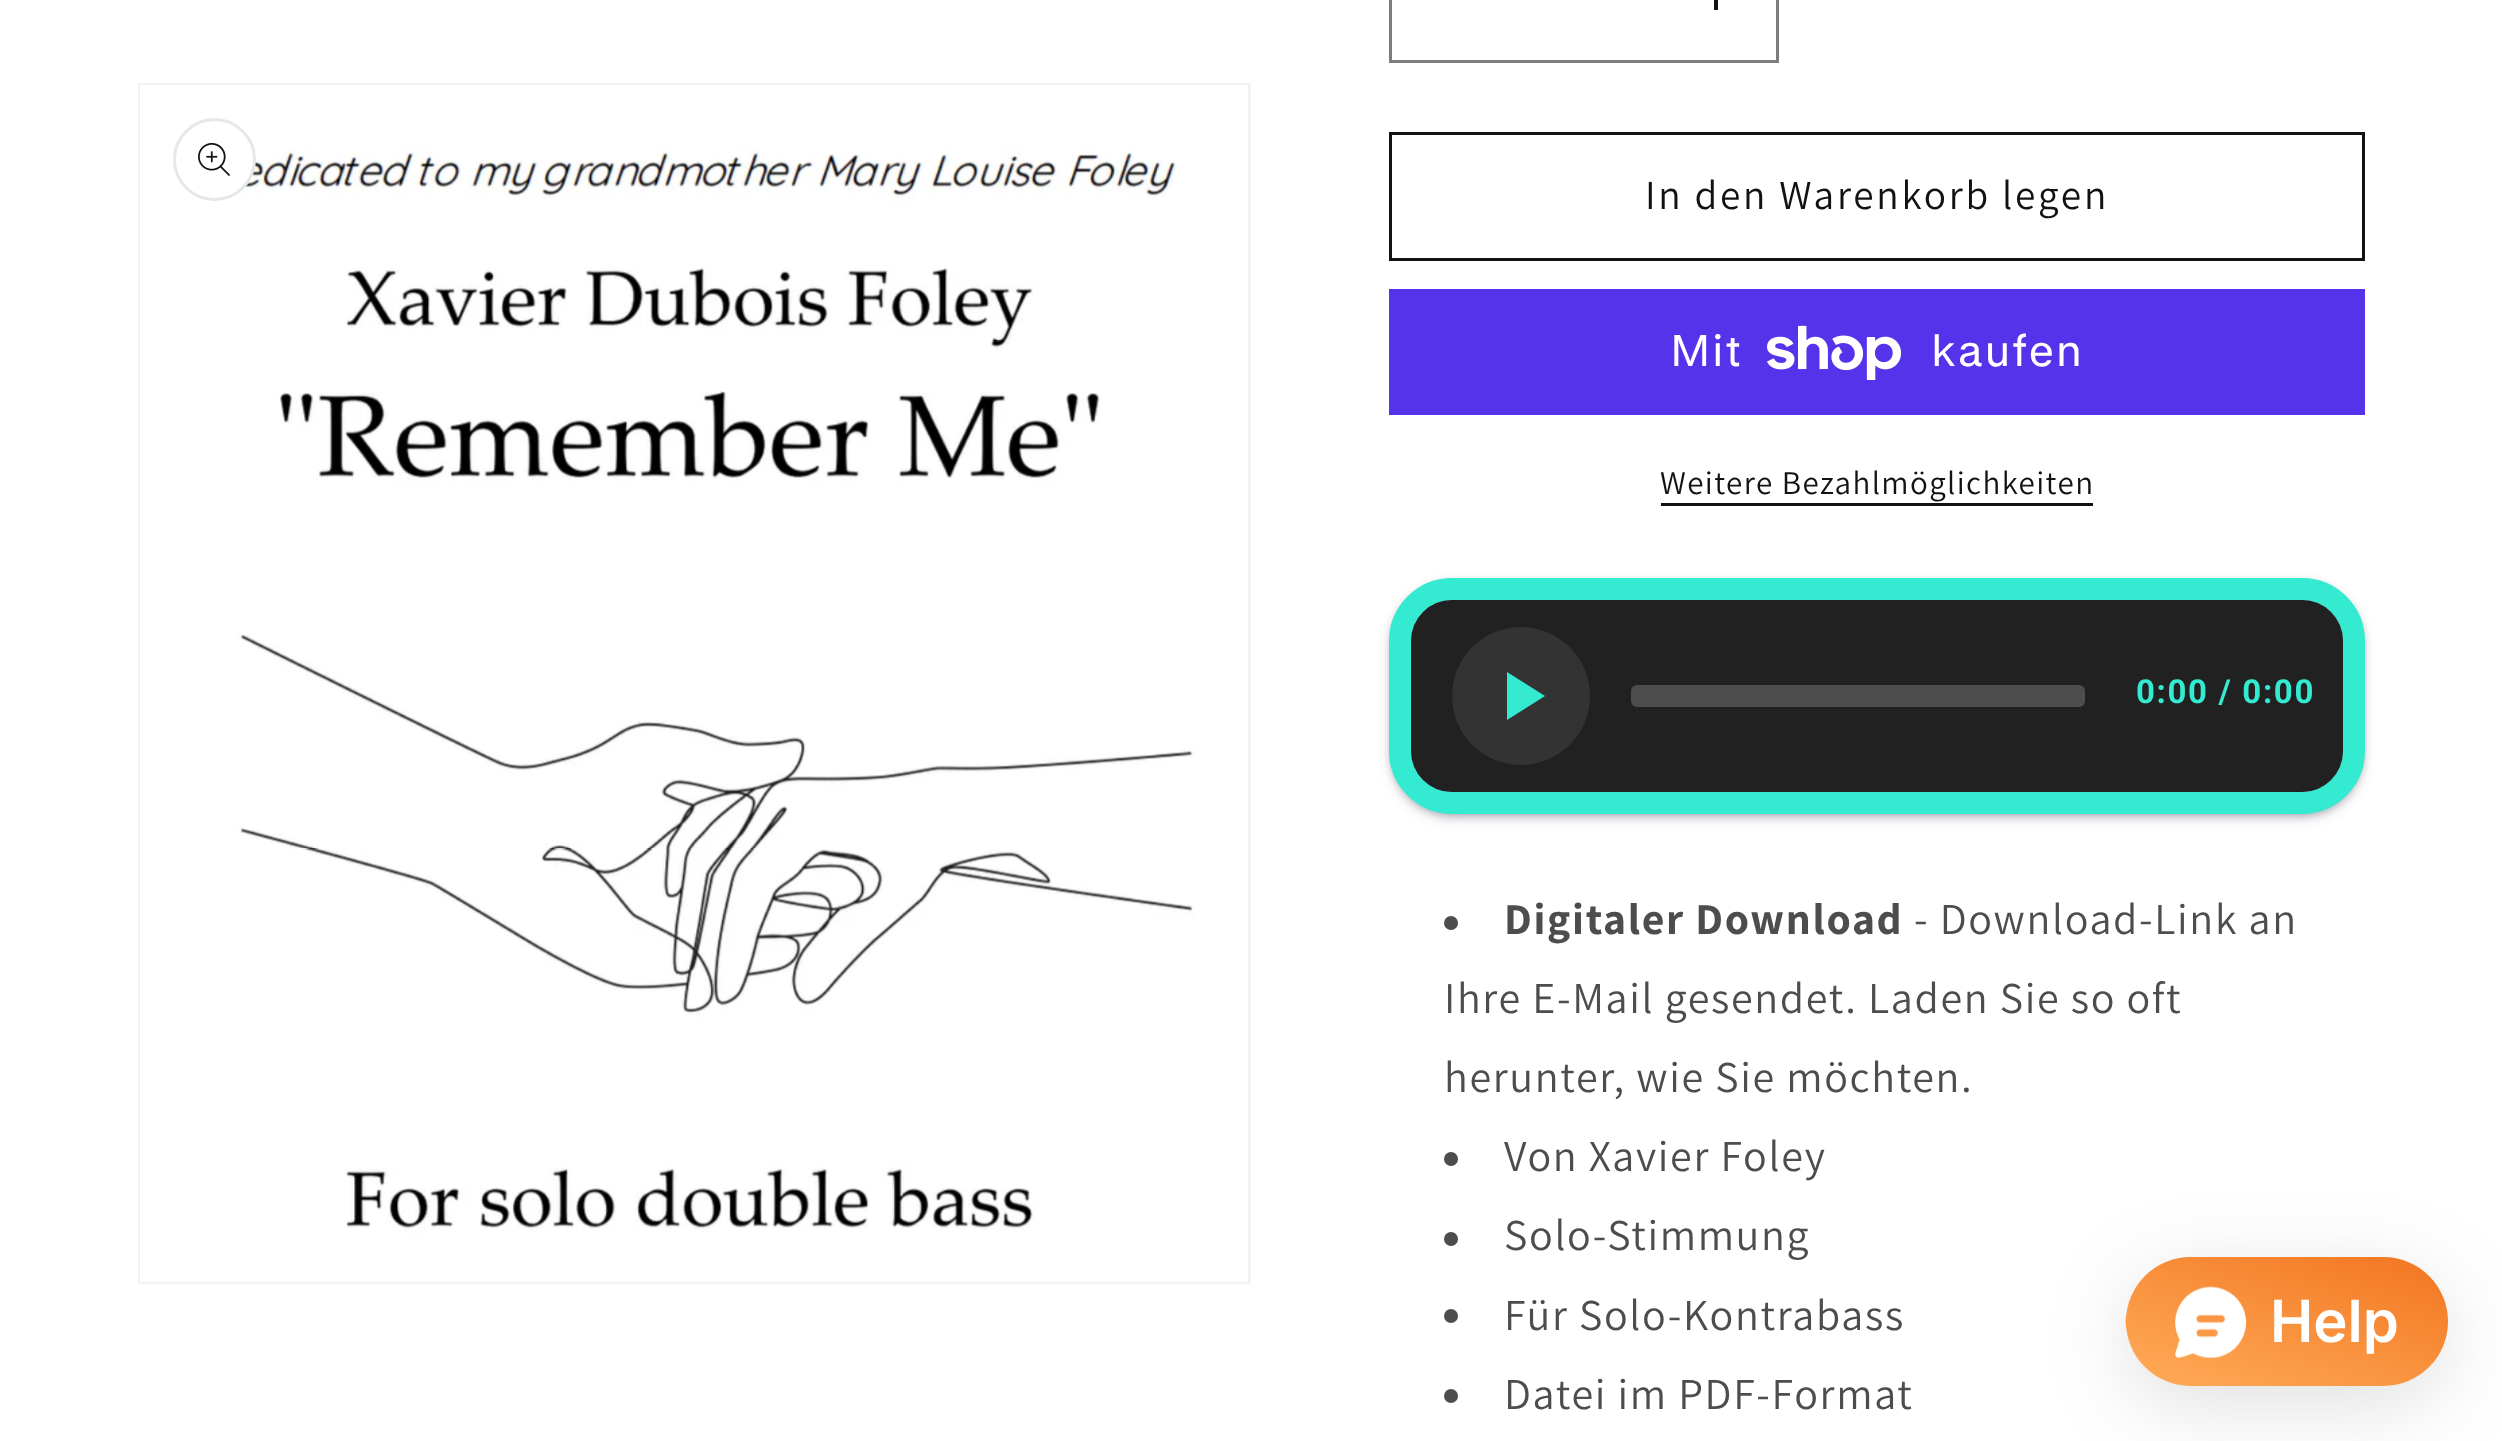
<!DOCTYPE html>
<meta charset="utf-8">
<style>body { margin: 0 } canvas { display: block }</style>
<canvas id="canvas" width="2502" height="1441"></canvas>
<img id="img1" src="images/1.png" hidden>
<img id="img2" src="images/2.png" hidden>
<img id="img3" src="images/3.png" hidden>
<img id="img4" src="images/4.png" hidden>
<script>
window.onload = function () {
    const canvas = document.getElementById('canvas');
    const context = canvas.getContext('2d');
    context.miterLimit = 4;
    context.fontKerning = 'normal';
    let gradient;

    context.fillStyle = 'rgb(255, 255, 255)';
    context.fillRect(0, 0, 2502, 1441);
    context.strokeStyle = 'rgb(243, 243, 243)';
    context.lineWidth = 3;
    context.strokeRect(139.5, 84.5, 1110, 1198);
    context.drawImage(document.getElementById('img1'), 140, 85, 1108, 1197);
    context.beginPath();
    context.arc(214.5, 159.5, 41.5, 0, 2 * Math.PI);
    context.fill();
    context.beginPath();
    context.arc(214.5, 159.5, 40, 0, 2 * Math.PI);
    context.strokeStyle = 'rgba(18, 18, 18, 0.1)';
    context.stroke();
    context.drawImage(document.getElementById('img2'), 198, 142, 32, 34);
    context.fillStyle = 'rgb(250, 250, 250)';
    context.fillRect(211, 1380, 1, 1);
    context.fillStyle = 'rgb(18, 18, 18)';
    context.fillRect(1714, 0, 4, 10);
    context.strokeStyle = 'rgb(125, 125, 125)';
    context.strokeRect(1390.5, -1.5, 387, 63);
    context.strokeStyle = 'rgb(18, 18, 18)';
    context.strokeRect(1390.5, 133.5, 973, 126);
    context.fillStyle = 'rgb(84, 51, 235)';
    context.fillRect(1389, 289, 976, 126);
    context.drawImage(document.getElementById('img3'), 1767, 325, 135, 55);
    context.fillStyle = 'rgb(18, 18, 18)';
    context.fillRect(1661, 503, 432, 3);
    context.fillStyle = 'rgba(0, 0, 0, 0.3)';
    context.filter = 'blur(4px)';
    context.beginPath();
    context.roundRect(1392, 583, 970, 231, 61);
    context.fill();
    context.filter = 'none';
    context.fillStyle = 'rgba(50, 50, 93, 0.25)';
    context.filter = 'blur(7px)';
    context.beginPath();
    context.roundRect(1392, 586, 970, 231, 61);
    context.fill();
    context.filter = 'none';
    context.beginPath();
    context.roundRect(1400, 589, 954, 214, 52);
    context.strokeStyle = 'rgb(52, 235, 210)';
    context.lineWidth = 22;
    context.stroke();
    context.fillStyle = 'rgb(33, 33, 33)';
    context.beginPath();
    context.roundRect(1411, 600, 932, 192, 41);
    context.fill();
    context.fillStyle = 'rgb(51, 51, 51)';
    context.beginPath();
    context.arc(1521, 696, 69, 0, 2 * Math.PI);
    context.fill();
    context.fillStyle = 'rgb(52, 235, 210)';
    context.beginPath();
    context.moveTo(1507, 720);
    context.lineTo(1507, 672);
    context.lineTo(1545, 696);
    context.closePath();
    context.fill();
    context.fillStyle = 'rgb(77, 77, 77)';
    context.beginPath();
    context.roundRect(1631, 685, 454, 22, 6);
    context.fill();
    context.beginPath();
    context.arc(1451, 923, 7, 0, 2 * Math.PI);
    context.fill();
    context.beginPath();
    context.arc(1451, 1159, 7, 0, 2 * Math.PI);
    context.fill();
    context.beginPath();
    context.arc(1451, 1239, 7, 0, 2 * Math.PI);
    context.fill();
    context.beginPath();
    context.arc(1451, 1316, 7, 0, 2 * Math.PI);
    context.fill();
    context.beginPath();
    context.arc(1451, 1396, 7, 0, 2 * Math.PI);
    context.fill();
    context.fillStyle = 'rgba(100, 100, 111, 0.2)';
    context.filter = 'blur(40px)';
    context.beginPath();
    context.roundRect(2126, 1276, 322, 129, 64.5);
    context.fill();
    context.filter = 'none';
    gradient = context.createLinearGradient(2324, 1214, 2250, 1429);
    gradient.addColorStop(0, 'rgb(242, 117, 33)');
    gradient.addColorStop(1, 'rgb(255, 172, 88)');
    context.fillStyle = gradient;
    context.beginPath();
    context.roundRect(2126, 1257, 322, 129, 64.5);
    context.fill();
    context.beginPath();
    context.ellipse(2286.5, 1321.5, 161, 64.5, 0, 0, 2 * Math.PI);
    context.fill();
    context.drawImage(document.getElementById('img4'), 2175, 1286, 71, 73);
    context.letterSpacing = '2.75px';
    context.font = '41.25px Assistant';
    context.fillStyle = 'rgb(18, 18, 18)';
    context.fillText('In den Warenkorb legen', 1645, 209);
    context.letterSpacing = '1.65px';
    context.font = '44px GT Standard';
    context.fillStyle = 'rgb(255, 255, 255)';
    context.fillText('Mit', 1670, 366);
    context.fillText('kaufen', 1931, 366);
    context.letterSpacing = '1.4px';
    context.font = '33px Assistant';
    context.fillStyle = 'rgb(18, 18, 18)';
    context.fillText('Weitere Bezahlmöglichkeiten', 1660, 494);
    context.letterSpacing = '1.65px';
    context.font = 'bold 33px Roboto';
    context.fillStyle = 'rgb(52, 235, 210)';
    context.fillText('0:00 / 0:00', 2136, 703);
    context.font = 'bold 44px Assistant';
    context.fillStyle = 'rgb(77, 77, 77)';
    context.fillText('Digitaler Download', 1504, 934);
    context.font = '44px Assistant';
    context.fillText('- Download-Link an', 1914, 934);
    context.fillText('Ihre E-Mail gesendet. Laden Sie so oft', 1444, 1013);
    context.fillText('herunter, wie Sie möchten.', 1444, 1092);
    context.fillText('Von Xavier Foley', 1504, 1171);
    context.fillText('Solo-Stimmung', 1504, 1250);
    context.fillText('Für Solo-Kontrabass', 1504, 1330);
    context.fillText('Datei im PDF-Format', 1504, 1409);
    context.letterSpacing = '0px';
    context.font = '600 58px Inter';
    context.fillStyle = 'rgb(255, 255, 255)';
    context.fillText('Help', 2270, 1342);
};
</script>
